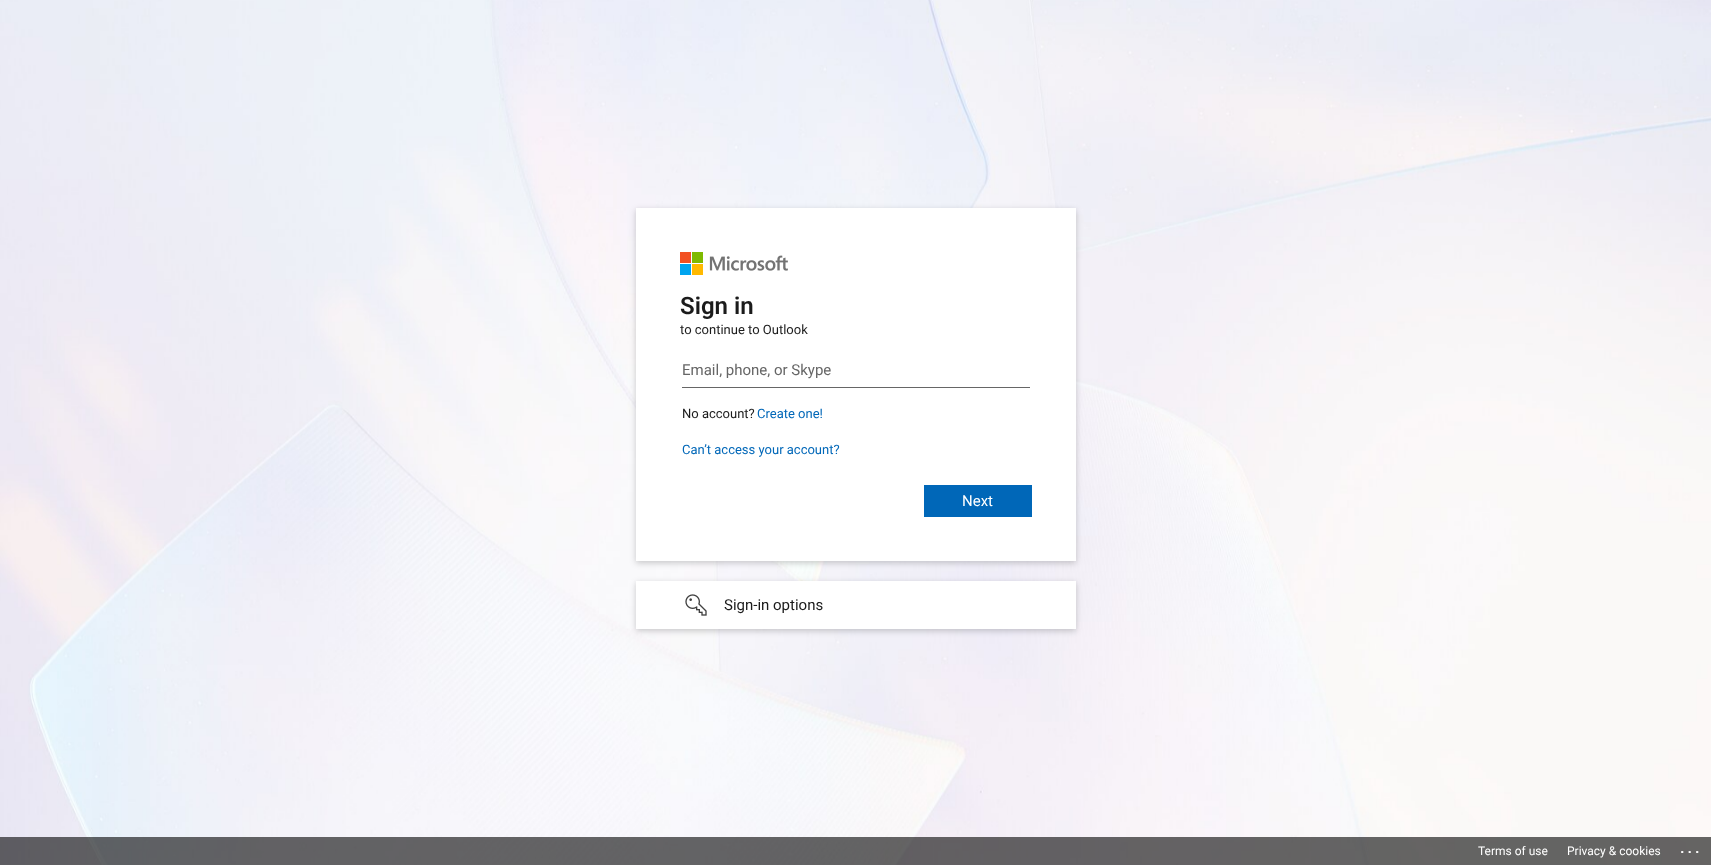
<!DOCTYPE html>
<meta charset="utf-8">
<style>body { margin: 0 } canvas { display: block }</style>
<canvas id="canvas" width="1711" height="865"></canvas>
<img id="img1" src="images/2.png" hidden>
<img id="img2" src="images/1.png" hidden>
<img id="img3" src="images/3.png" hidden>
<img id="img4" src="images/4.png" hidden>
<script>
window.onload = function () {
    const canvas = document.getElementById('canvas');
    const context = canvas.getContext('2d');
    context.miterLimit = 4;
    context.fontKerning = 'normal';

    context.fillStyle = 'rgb(255, 255, 255)';
    context.fillRect(0, 0, 1711, 865);
    context.drawImage(document.getElementById('img1'), 0, 864, 1711, 1);
    context.drawImage(document.getElementById('img2'), 0, 0, 1711, 865);
    context.fillStyle = 'rgba(0, 0, 0, 0.2)';
    context.filter = 'blur(3px)';
    context.beginPath();
    context.rect(636, 210, 440, 353);
    context.fill();
    context.filter = 'none';
    context.fillStyle = 'rgb(255, 255, 255)';
    context.fillRect(636, 208, 440, 353);
    context.drawImage(document.getElementById('img3'), 680, 252, 108, 23);
    context.fillStyle = 'rgb(102, 102, 102)';
    context.fillRect(682, 387, 348, 1);
    context.fillStyle = 'rgb(0, 103, 184)';
    context.fillRect(924, 485, 108, 32);
    context.fillStyle = 'rgba(0, 0, 0, 0.2)';
    context.filter = 'blur(3px)';
    context.beginPath();
    context.rect(636, 583, 440, 48);
    context.fill();
    context.filter = 'none';
    context.fillStyle = 'rgb(255, 255, 255)';
    context.fillRect(636, 581, 440, 48);
    context.drawImage(document.getElementById('img4'), 685, 594, 22, 22);
    context.fillStyle = 'rgba(0, 0, 0, 0.6)';
    context.fillRect(0, 837, 1711, 28);
    context.font = '600 24px Roboto';
    context.fillStyle = 'rgb(27, 27, 27)';
    context.fillText('Sign in', 680, 314);
    context.font = '13px Roboto';
    context.fillText('to continue to Outlook', 680, 334);
    context.font = '15px Roboto';
    context.fillStyle = 'rgb(102, 102, 102)';
    context.fillText('Email, phone, or Skype', 682, 375);
    context.font = '13px Roboto';
    context.fillStyle = 'rgb(27, 27, 27)';
    context.fillText('No account?', 682, 418);
    context.fillStyle = 'rgb(0, 103, 184)';
    context.fillText('Create one!', 757, 418);
    context.fillText('Can’t access your account?', 682, 454);
    context.font = '15px Roboto';
    context.fillStyle = 'rgb(255, 255, 255)';
    context.fillText('Next', 962, 506);
    context.fillStyle = 'rgb(27, 27, 27)';
    context.fillText('Sign-in options', 724, 610);
    context.font = '12px Roboto';
    context.fillStyle = 'rgb(255, 255, 255)';
    context.fillText('Terms of use', 1478, 855);
    context.fillText('Privacy & cookies', 1567, 855);
    context.letterSpacing = '3px';
    context.font = '600 16px Roboto';
    context.fillText('...', 1680, 853);
};
</script>
